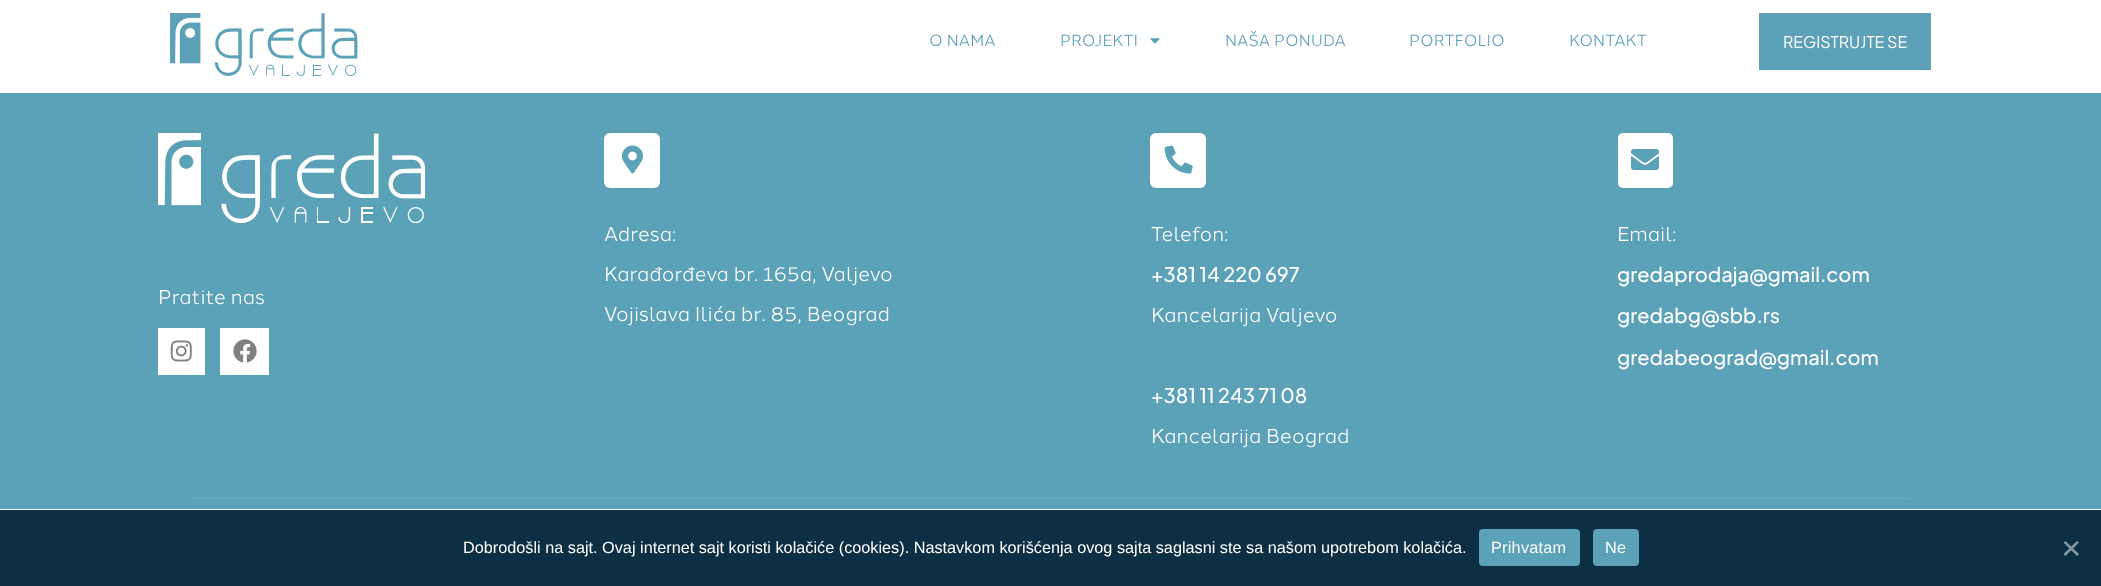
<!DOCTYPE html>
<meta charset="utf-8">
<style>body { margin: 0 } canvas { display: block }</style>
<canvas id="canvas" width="2101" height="586"></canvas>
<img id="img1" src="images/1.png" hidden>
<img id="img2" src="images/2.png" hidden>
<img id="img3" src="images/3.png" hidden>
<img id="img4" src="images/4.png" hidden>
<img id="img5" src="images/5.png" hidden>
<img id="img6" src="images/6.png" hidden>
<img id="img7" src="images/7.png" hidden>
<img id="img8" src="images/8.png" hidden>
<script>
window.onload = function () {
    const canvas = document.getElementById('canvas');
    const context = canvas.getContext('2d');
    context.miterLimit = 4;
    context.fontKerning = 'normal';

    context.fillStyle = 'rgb(255, 255, 255)';
    context.fillRect(0, 0, 2101, 586);
    context.drawImage(document.getElementById('img1'), 170, 13, 188, 63);
    context.drawImage(document.getElementById('img2'), 1150, 38, 10, 6);
    context.fillStyle = 'rgb(92, 161, 184)';
    context.fillRect(1759, 13, 172, 57);
    context.fillStyle = 'rgb(91, 161, 184)';
    context.fillRect(0, 93, 2101, 416);
    context.drawImage(document.getElementById('img3'), 158, 133, 267, 90);
    context.fillStyle = 'rgb(255, 255, 255)';
    context.fillRect(158, 328, 47, 47);
    context.drawImage(document.getElementById('img4'), 170, 340, 22, 22);
    context.fillRect(220, 328, 49, 47);
    context.drawImage(document.getElementById('img5'), 233, 339, 24, 24);
    context.beginPath();
    context.roundRect(604, 133, 56, 55, 6);
    context.fill();
    context.drawImage(document.getElementById('img6'), 622, 145, 21, 29);
    context.beginPath();
    context.roundRect(1150, 133, 56, 55, 6);
    context.fill();
    context.drawImage(document.getElementById('img7'), 1164, 145, 29, 29);
    context.beginPath();
    context.roundRect(1618, 133, 55, 55, 5);
    context.fill();
    context.drawImage(document.getElementById('img8'), 1631, 149, 28, 21);
    context.fillStyle = 'rgb(108, 169, 189)';
    context.fillRect(190, 498, 1721, 1);
    context.fillStyle = 'rgb(12, 47, 67)';
    context.fillRect(0, 510, 2101, 76);
    context.fillStyle = 'rgb(245, 245, 245)';
    context.fillRect(0, 509, 2101, 1);
    context.fillStyle = 'rgb(91, 161, 184)';
    context.beginPath();
    context.roundRect(1479, 529, 101, 37, 4);
    context.fill();
    context.beginPath();
    context.roundRect(1593, 529, 46, 37, 4);
    context.fill();
    context.fillStyle = 'rgb(134, 151, 161)';
    context.beginPath();
    context.moveTo(2077, 541);
    context.lineTo(2079, 542.5);
    context.lineTo(2065.5, 556);
    context.lineTo(2063.5, 554);
    context.closePath();
    context.fill();
    context.beginPath();
    context.moveTo(2063.5, 542.5);
    context.lineTo(2065.5, 541);
    context.lineTo(2079, 554);
    context.lineTo(2077, 556);
    context.closePath();
    context.fill();
    context.font = '16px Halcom';
    context.fillStyle = 'rgb(91, 161, 184)';
    context.fillText('O NAMA', 929, 46);
    context.fillText('PROJEKTI', 1060, 46);
    context.fillText('NAŠA PONUDA', 1225, 46);
    context.fillText('PORTFOLIO', 1409, 46);
    context.fillText('KONTAKT', 1569, 46);
    context.font = '16px Plus Jakarta Sans';
    context.fillStyle = 'rgb(255, 255, 255)';
    context.fillText('REGISTRUJTE SE', 1783, 48);
    context.font = '20px Halcom';
    context.fillText('Pratite nas', 158, 304);
    context.fillText('Adresa:', 604, 241);
    context.fillText('Karađorđeva br. 165a, Valjevo', 604, 281);
    context.fillText('Vojislava Ilića br. 85, Beograd', 604, 321);
    context.fillText('Telefon:', 1151, 241);
    context.font = '500 20px Plus Jakarta Sans';
    context.fillText('+381 14 220 697', 1151, 282);
    context.font = '20px Halcom';
    context.fillText('Kancelarija Valjevo', 1151, 322);
    context.font = '500 20px Plus Jakarta Sans';
    context.fillText('+381 11 243 71 08', 1151, 403);
    context.font = '20px Halcom';
    context.fillText('Kancelarija Beograd', 1151, 443);
    context.fillText('Email:', 1617, 241);
    context.font = '500 20px Plus Jakarta Sans';
    context.fillText('gredaprodaja@gmail.com', 1617, 282);
    context.fillText('gredabg@sbb.rs', 1617, 323);
    context.fillText('gredabeograd@gmail.com', 1617, 365);
    context.font = '16.25px Liberation Sans';
    context.fillText('Dobrodošli na sajt. Ovaj internet sajt koristi kolačiće (cookies). Nastavkom korišćenja ovog sajta saglasni ste sa našom upotrebom kolačića.', 463, 553);
    context.letterSpacing = '0.25px';
    context.fillText('Prihvatam', 1491, 553);
    context.fillText('Ne', 1605, 553);
};
</script>
